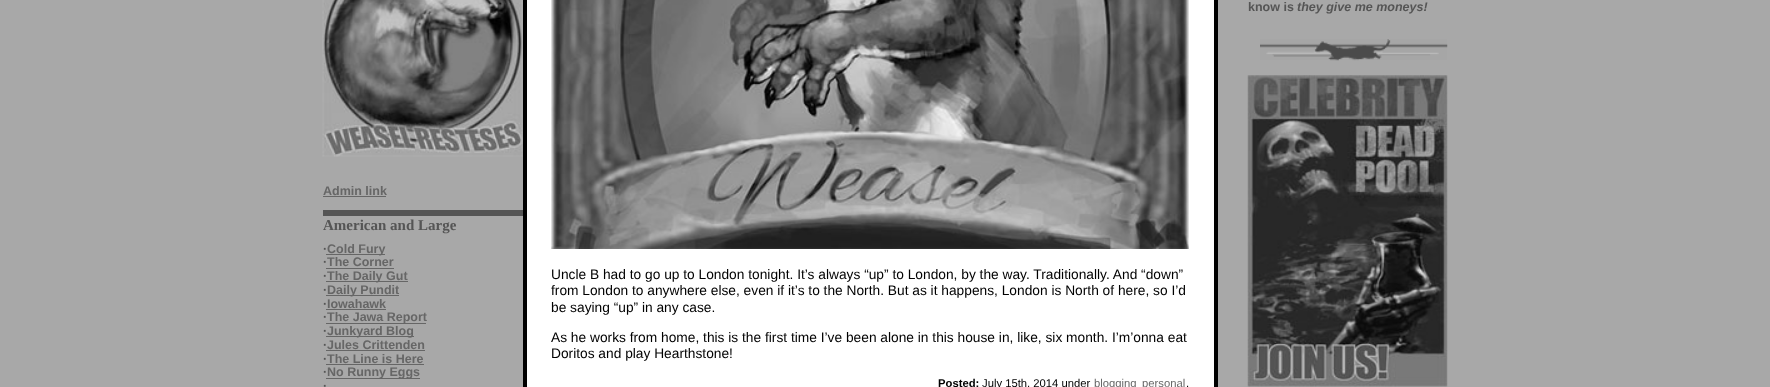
<!DOCTYPE html>
<meta charset="utf-8">
<style>body { margin: 0 } canvas { display: block }</style>
<canvas id="canvas" width="1770" height="387"></canvas>
<img id="img1" src="images/1.png" hidden>
<img id="img2" src="images/2.png" hidden>
<img id="img3" src="images/3.png" hidden>
<img id="img4" src="images/4.png" hidden>
<script>
window.onload = function () {
    const canvas = document.getElementById('canvas');
    const context = canvas.getContext('2d');
    context.miterLimit = 4;
    context.fontKerning = 'normal';

    context.fillStyle = 'rgb(168, 168, 168)';
    context.fillRect(0, 0, 1770, 387);
    context.drawImage(document.getElementById('img1'), 1260, 39, 188, 22);
    context.drawImage(document.getElementById('img2'), 1247, 75, 201, 312);
    context.drawImage(document.getElementById('img3'), 322, 0, 201, 157);
    context.fillStyle = 'rgb(102, 102, 102)';
    context.fillRect(323, 196, 63, 1);
    context.fillStyle = 'rgb(85, 85, 85)';
    context.fillRect(323, 210, 200, 6);
    context.fillStyle = 'rgb(102, 102, 102)';
    context.fillRect(326, 254, 59, 1);
    context.fillRect(326, 268, 68, 1);
    context.fillRect(326, 281, 82, 1);
    context.fillRect(326, 295, 73, 1);
    context.fillRect(326, 309, 60, 1);
    context.fillRect(326, 323, 100, 1);
    context.fillRect(326, 336, 88, 1);
    context.fillRect(326, 350, 99, 1);
    context.fillRect(326, 364, 98, 1);
    context.fillRect(326, 378, 94, 1);
    context.fillStyle = 'rgb(255, 255, 255)';
    context.beginPath();
    context.rect(525, -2, 691, 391);
    context.fill();
    context.strokeStyle = 'rgb(0, 0, 0)';
    context.lineWidth = 4;
    context.stroke();
    context.drawImage(document.getElementById('img4'), 551, 0, 638, 249);
    context.font = 'bold 12.5px Liberation Sans';
    context.fillStyle = 'rgb(85, 85, 85)';
    context.fillText('know is', 1248, 11);
    context.font = 'italic bold 12.5px Liberation Sans';
    context.fillText('they give me moneys!', 1297, 11);
    context.font = 'bold 12.5px Liberation Sans';
    context.fillStyle = 'rgb(102, 102, 102)';
    context.fillText('Admin link', 323, 195);
    context.font = 'bold 15px Liberation Serif';
    context.fillStyle = 'rgb(85, 85, 85)';
    context.fillText('American and Large', 323, 230);
    context.font = 'bold 12.5px Liberation Sans';
    context.fillText('·', 323, 253);
    context.fillStyle = 'rgb(102, 102, 102)';
    context.fillText('Cold Fury', 327, 253);
    context.fillStyle = 'rgb(85, 85, 85)';
    context.fillText('·', 323, 266);
    context.fillStyle = 'rgb(102, 102, 102)';
    context.fillText('The Corner', 327, 266);
    context.fillStyle = 'rgb(85, 85, 85)';
    context.fillText('·', 323, 280);
    context.fillStyle = 'rgb(102, 102, 102)';
    context.fillText('The Daily Gut', 327, 280);
    context.fillStyle = 'rgb(85, 85, 85)';
    context.fillText('·', 323, 294);
    context.fillStyle = 'rgb(102, 102, 102)';
    context.fillText('Daily Pundit', 327, 294);
    context.fillStyle = 'rgb(85, 85, 85)';
    context.fillText('·', 323, 308);
    context.fillStyle = 'rgb(102, 102, 102)';
    context.fillText('Iowahawk', 327, 308);
    context.fillStyle = 'rgb(85, 85, 85)';
    context.fillText('·', 323, 321);
    context.fillStyle = 'rgb(102, 102, 102)';
    context.fillText('The Jawa Report', 327, 321);
    context.fillStyle = 'rgb(85, 85, 85)';
    context.fillText('·', 323, 335);
    context.fillStyle = 'rgb(102, 102, 102)';
    context.fillText('Junkyard Blog', 327, 335);
    context.fillStyle = 'rgb(85, 85, 85)';
    context.fillText('·', 323, 349);
    context.fillStyle = 'rgb(102, 102, 102)';
    context.fillText('Jules Crittenden', 327, 349);
    context.fillStyle = 'rgb(85, 85, 85)';
    context.fillText('·', 323, 363);
    context.fillStyle = 'rgb(102, 102, 102)';
    context.fillText('The Line is Here', 327, 363);
    context.fillStyle = 'rgb(85, 85, 85)';
    context.fillText('·', 323, 376);
    context.fillStyle = 'rgb(102, 102, 102)';
    context.fillText('No Runny Eggs', 327, 376);
    context.fillStyle = 'rgb(85, 85, 85)';
    context.fillText('·', 323, 390);
    context.font = '13.75px Liberation Sans';
    context.fillStyle = 'rgb(0, 0, 0)';
    context.fillText('Uncle B had to go up to London tonight. It’s always “up” to London, by the way. Traditionally. And “down”', 551, 279);
    context.fillText('from London to anywhere else, even if it’s to the North. But as it happens, London is North of here, so I’d', 551, 295);
    context.fillText('be saying “up” in any case.', 551, 312);
    context.fillText('As he works from home, this is the first time I’ve been alone in this house in, like, six month. I’m’onna eat', 551, 342);
    context.fillText('Doritos and play Hearthstone!', 551, 358);
    context.font = 'bold 11.25px Liberation Sans';
    context.fillText('Posted:', 938, 387);
    context.font = '11.25px Liberation Sans';
    context.fillText('July 15th, 2014 under', 982, 387);
    context.fillStyle = 'rgb(102, 102, 102)';
    context.fillText('blogging', 1094, 387);
    context.fillText('personal', 1142, 387);
    context.fillStyle = 'rgb(0, 0, 0)';
    context.fillText('.', 1186, 387);
};
</script>
